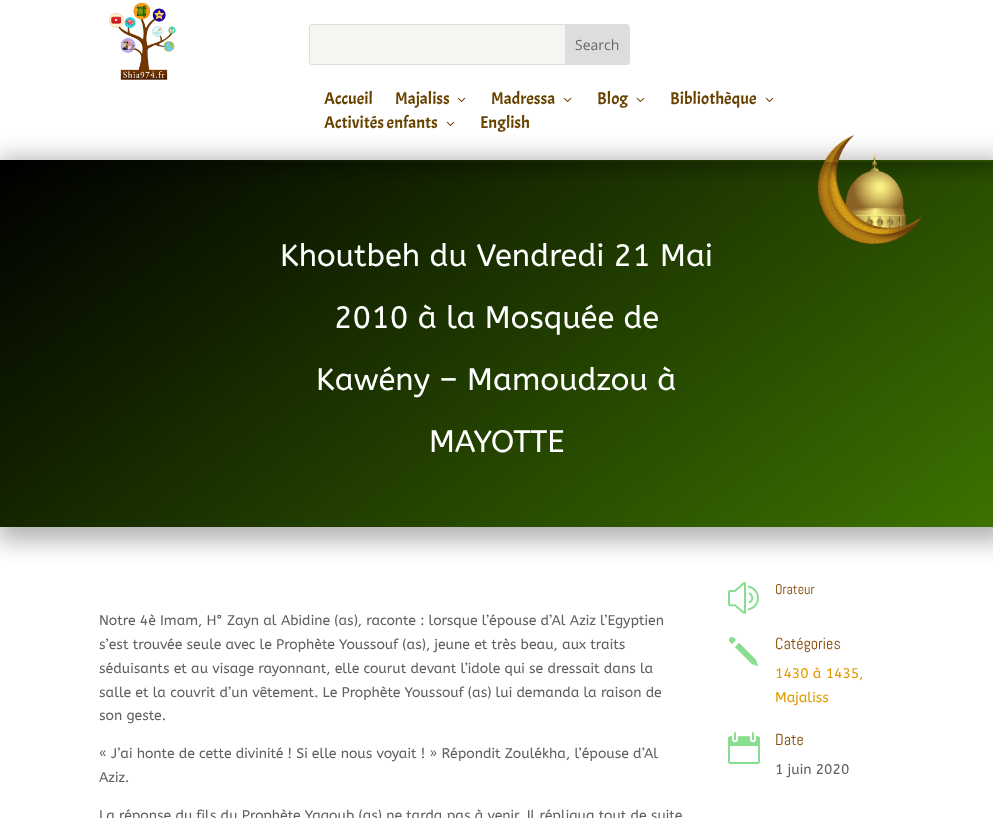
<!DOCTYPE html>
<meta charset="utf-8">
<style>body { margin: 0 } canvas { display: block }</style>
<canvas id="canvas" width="993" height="818"></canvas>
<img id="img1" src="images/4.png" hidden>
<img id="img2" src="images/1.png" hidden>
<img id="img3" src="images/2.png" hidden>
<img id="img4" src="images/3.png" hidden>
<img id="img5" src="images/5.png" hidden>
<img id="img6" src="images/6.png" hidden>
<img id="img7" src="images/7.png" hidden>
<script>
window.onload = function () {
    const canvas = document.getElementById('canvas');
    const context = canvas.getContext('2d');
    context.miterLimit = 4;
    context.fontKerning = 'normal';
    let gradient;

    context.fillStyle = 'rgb(255, 255, 255)';
    context.fillRect(0, 0, 993, 818);
    context.fillStyle = 'rgba(0, 0, 0, 0.3)';
    context.filter = 'blur(12px)';
    context.beginPath();
    context.rect(-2, 158, 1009, 383);
    context.fill();
    context.filter = 'none';
    gradient = context.createLinearGradient(228, -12, 765, 699);
    gradient.addColorStop(0, 'rgb(0, 0, 0)');
    gradient.addColorStop(1, 'rgb(61, 114, 0)');
    context.fillStyle = gradient;
    context.fillRect(0, 160, 993, 367);
    context.drawImage(document.getElementById('img1'), 818, 135, 104, 109);
    context.save();
    context.beginPath();
    context.rect(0, 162, 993, 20);
    context.clip();
    context.fillStyle = 'rgba(0, 0, 0, 0.3)';
    context.filter = 'blur(9px)';
    context.beginPath();
    context.rect(6, 6, 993, 162);
    context.fill();
    context.filter = 'none';
    context.restore();
    context.drawImage(document.getElementById('img2'), 109, 2, 67, 78);
    context.beginPath();
    context.roundRect(309.5, 24.5, 320, 40, 2.5);
    context.strokeStyle = 'rgb(221, 221, 221)';
    context.stroke();
    context.fillStyle = 'rgba(224, 219, 206, 0.27)';
    context.beginPath();
    context.roundRect(310, 25, 255, 39, [2, 0, 0, 2]);
    context.fill();
    context.fillStyle = 'rgb(221, 221, 221)';
    context.beginPath();
    context.roundRect(565, 25, 64, 39, [0, 2, 2, 0]);
    context.fill();
    context.drawImage(document.getElementById('img3'), 457, 97, 9, 5);
    context.drawImage(document.getElementById('img3'), 563, 97, 9, 5);
    context.drawImage(document.getElementById('img3'), 636, 97, 9, 5);
    context.drawImage(document.getElementById('img3'), 765, 97, 9, 5);
    context.drawImage(document.getElementById('img4'), 446, 121, 9, 5);
    context.drawImage(document.getElementById('img5'), 728, 582, 31, 32);
    context.drawImage(document.getElementById('img6'), 729, 637, 29, 29);
    context.drawImage(document.getElementById('img7'), 728, 732, 32, 32);
    context.font = '14px Open Sans';
    context.fillStyle = 'rgb(102, 102, 102)';
    context.fillText('Search', 575, 50);
    context.font = '17px Acme';
    context.fillStyle = 'rgb(104, 67, 0)';
    context.fillText('Accueil', 324, 104);
    context.fillText('Majaliss', 395, 104);
    context.fillText('Madressa', 491, 104);
    context.fillText('Blog', 597, 104);
    context.fillText('Bibliothèque', 670, 104);
    context.fillText('Activités enfants', 324, 128);
    context.fillText('English', 480, 128);
    context.font = '31px ABeeZee';
    context.fillStyle = 'rgb(255, 255, 255)';
    context.fillText('Khoutbeh du Vendredi 21 Mai', 280, 266);
    context.fillText('2010 à la Mosquée de', 334, 328);
    context.fillText('Kawény – Mamoudzou à', 316, 390);
    context.fillText('MAYOTTE', 429, 452);
    context.font = '14px ABeeZee';
    context.fillStyle = 'rgb(96, 96, 96)';
    context.fillText('Notre 4è Imam, H° Zayn al Abidine (as), raconte : lorsque l’épouse d’Al Aziz l’Egyptien', 99, 625);
    context.fillText('s’est trouvée seule avec le Prophète Youssouf (as), jeune et très beau, aux traits', 99, 649);
    context.fillText('séduisants et au visage rayonnant, elle courut devant l’idole qui se dressait dans la', 99, 673);
    context.fillText('salle et la couvrit d’un vêtement. Le Prophète Youssouf (as) lui demanda la raison de', 99, 697);
    context.fillText('son geste.', 99, 720);
    context.fillText('« J’ai honte de cette divinité ! Si elle nous voyait ! » Répondit Zoulékha, l’épouse d’Al', 99, 758);
    context.fillText('Aziz.', 99, 782);
    context.fillText('La réponse du fils du Prophète Yaqoub (as) ne tarda pas à venir. Il répliqua tout de suite', 99, 820);
    context.font = '14px Abel';
    context.fillStyle = 'rgb(132, 70, 0)';
    context.fillText('Orateur', 775, 594);
    context.font = '16px Abel';
    context.fillText('Catégories', 775, 649);
    context.font = '14px ABeeZee';
    context.fillStyle = 'rgb(224, 153, 0)';
    context.fillText('1430 à 1435,', 775, 678);
    context.fillText('Majaliss', 775, 702);
    context.font = '16px Abel';
    context.fillStyle = 'rgb(132, 70, 0)';
    context.fillText('Date', 775, 745);
    context.font = '14px ABeeZee';
    context.fillStyle = 'rgb(96, 96, 96)';
    context.fillText('1 juin 2020', 775, 774);
};
</script>
